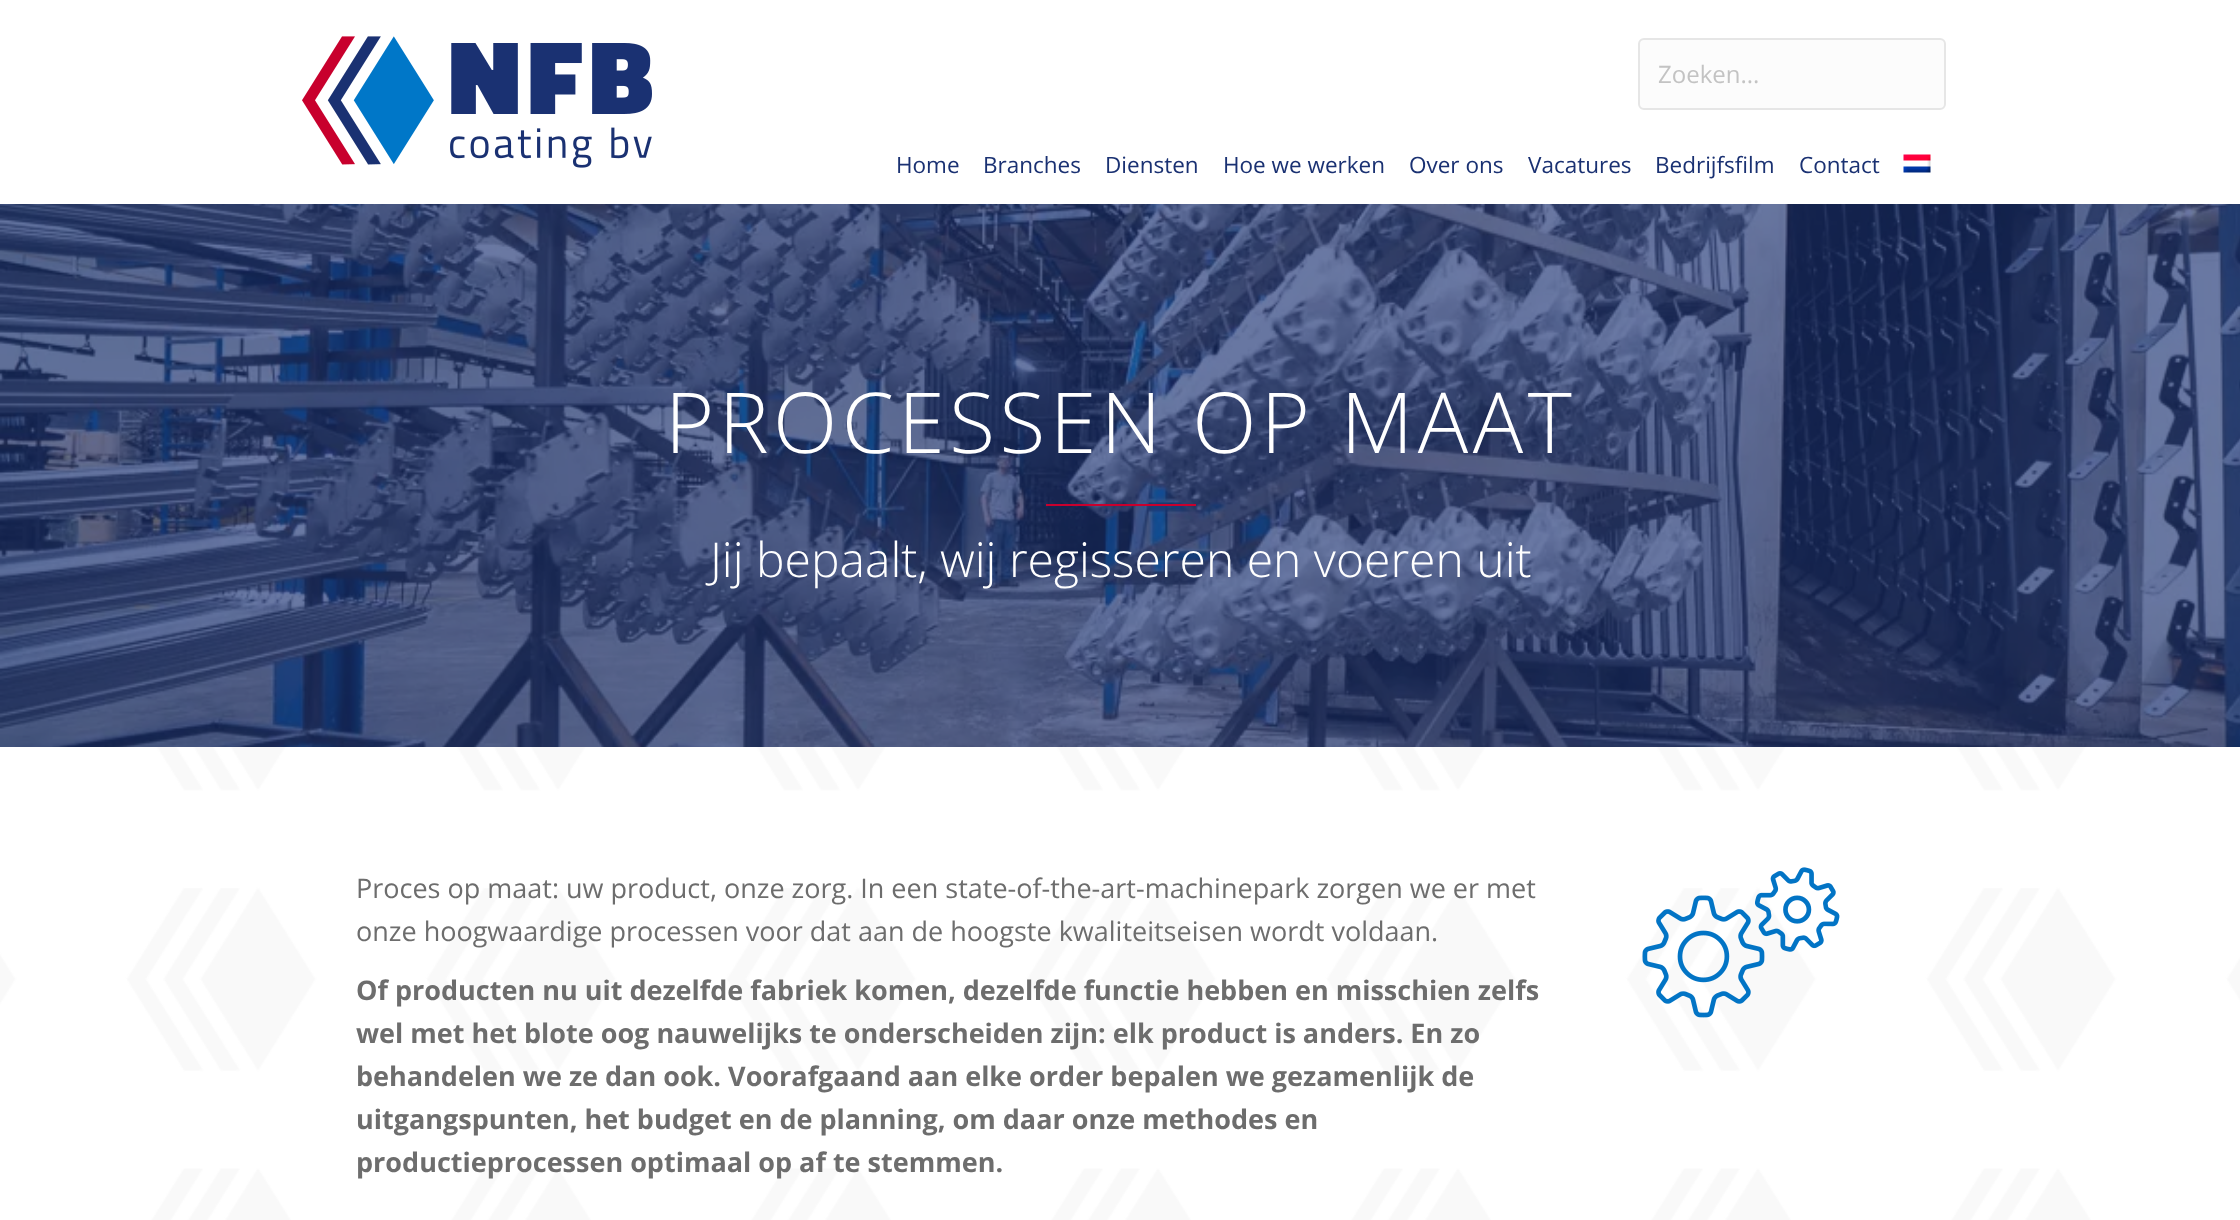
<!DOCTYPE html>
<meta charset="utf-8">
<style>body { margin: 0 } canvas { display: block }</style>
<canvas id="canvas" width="2240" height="1220"></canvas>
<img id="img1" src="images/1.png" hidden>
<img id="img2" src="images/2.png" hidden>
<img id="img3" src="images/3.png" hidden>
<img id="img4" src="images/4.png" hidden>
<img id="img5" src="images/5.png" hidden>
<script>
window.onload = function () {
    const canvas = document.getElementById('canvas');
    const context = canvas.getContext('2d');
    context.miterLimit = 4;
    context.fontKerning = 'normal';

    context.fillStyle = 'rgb(255, 255, 255)';
    context.fillRect(0, 0, 2240, 1220);
    context.drawImage(document.getElementById('img1'), 0, 747, 2240, 473);
    context.drawImage(document.getElementById('img2'), 302, 36, 350, 132);
    context.fillStyle = 'rgb(252, 252, 252)';
    context.beginPath();
    context.roundRect(1639, 39, 306, 70, 5);
    context.fill();
    context.strokeStyle = 'rgb(230, 230, 230)';
    context.lineWidth = 2;
    context.stroke();
    context.drawImage(document.getElementById('img3'), 1903, 154, 28, 19);
    context.drawImage(document.getElementById('img4'), 0, 204, 2240, 543);
    context.fillStyle = 'rgb(200, 0, 45)';
    context.fillRect(1046, 504, 150, 2);
    context.drawImage(document.getElementById('img5'), 1642, 867, 198, 151);
    context.font = '24px Open Sans';
    context.fillStyle = 'rgb(195, 195, 195)';
    context.fillText('Zoeken...', 1658, 83);
    context.font = '22.5px Open Sans';
    context.fillStyle = 'rgb(26, 49, 114)';
    context.fillText('Home', 896, 173);
    context.fillText('Branches', 983, 173);
    context.fillText('Diensten', 1105, 173);
    context.fillText('Hoe we werken', 1223, 173);
    context.fillText('Over ons', 1409, 173);
    context.fillText('Vacatures', 1528, 173);
    context.fillText('Bedrijfsfilm', 1655, 173);
    context.fillText('Contact', 1799, 173);
    context.letterSpacing = '4.5px';
    context.font = '300 84px Open Sans';
    context.fillStyle = 'rgb(255, 255, 255)';
    context.fillText('PROCESSEN OP MAAT', 665, 453);
    context.letterSpacing = '0px';
    context.font = '300 48px Open Sans';
    context.fillText('Jij bepaalt, wij regisseren en voeren uit', 710, 577);
    context.font = '27px Open Sans';
    context.fillStyle = 'rgb(109, 109, 109)';
    context.fillText('Proces op maat: uw product, onze zorg. In een state-of-the-art-machinepark zorgen we er met', 356, 898);
    context.fillText('onze hoogwaardige processen voor dat aan de hoogste kwaliteitseisen wordt voldaan.', 356, 941);
    context.font = 'bold 27px Open Sans';
    context.fillText('Of producten nu uit dezelfde fabriek komen, dezelfde functie hebben en misschien zelfs', 356, 1000);
    context.fillText('wel met het blote oog nauwelijks te onderscheiden zijn: elk product is anders. En zo', 356, 1043);
    context.fillText('behandelen we ze dan ook. Voorafgaand aan elke order bepalen we gezamenlijk de', 356, 1086);
    context.fillText('uitgangspunten, het budget en de planning, om daar onze methodes en', 356, 1129);
    context.fillText('productieprocessen optimaal op af te stemmen.', 356, 1172);
};
</script>
